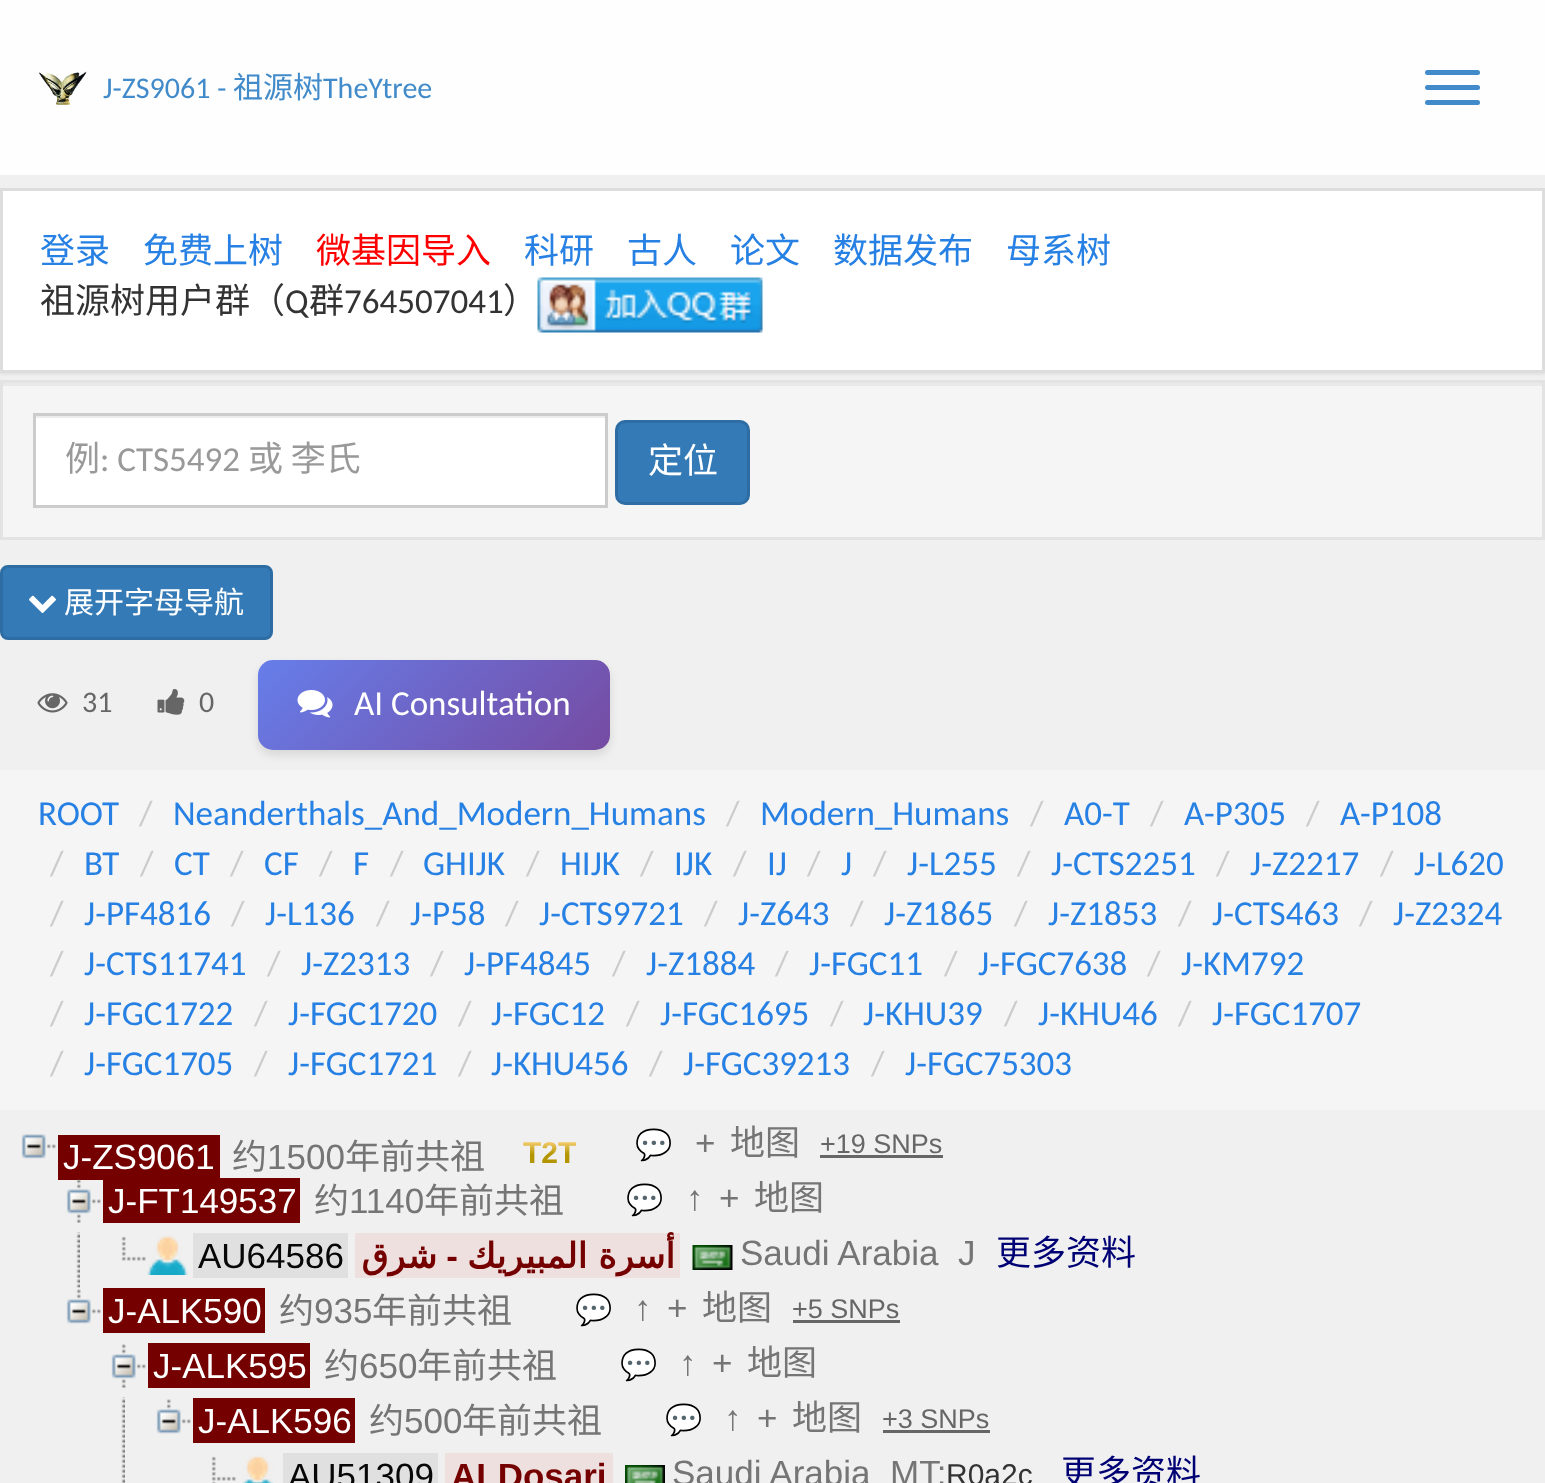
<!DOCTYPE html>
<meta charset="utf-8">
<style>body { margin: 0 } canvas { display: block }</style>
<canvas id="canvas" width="1545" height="1483"></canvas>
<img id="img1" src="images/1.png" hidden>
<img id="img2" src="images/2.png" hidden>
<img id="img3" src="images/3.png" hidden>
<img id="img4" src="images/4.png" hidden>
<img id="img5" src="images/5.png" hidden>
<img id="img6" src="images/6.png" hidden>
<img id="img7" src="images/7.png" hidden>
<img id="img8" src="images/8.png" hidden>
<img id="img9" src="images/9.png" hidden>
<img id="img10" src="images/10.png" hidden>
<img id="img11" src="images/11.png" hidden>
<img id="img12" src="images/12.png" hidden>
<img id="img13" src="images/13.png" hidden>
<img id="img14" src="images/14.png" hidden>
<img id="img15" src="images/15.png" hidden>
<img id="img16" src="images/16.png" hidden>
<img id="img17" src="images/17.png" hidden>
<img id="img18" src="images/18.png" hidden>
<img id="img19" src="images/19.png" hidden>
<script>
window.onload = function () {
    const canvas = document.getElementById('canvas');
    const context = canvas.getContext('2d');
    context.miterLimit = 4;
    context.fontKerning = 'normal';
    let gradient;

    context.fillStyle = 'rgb(240, 240, 240)';
    context.fillRect(0, 0, 1545, 1483);
    context.fillStyle = 'rgb(254, 254, 254)';
    context.fillRect(0, 0, 1545, 175);
    context.drawImage(document.getElementById('img1'), 39, 71, 48, 34);
    context.fillStyle = 'rgb(66, 139, 202)';
    context.beginPath();
    context.roundRect(1425, 70, 55, 5, 2.5);
    context.fill();
    context.beginPath();
    context.roundRect(1425, 85, 55, 5, 2.5);
    context.fill();
    context.beginPath();
    context.roundRect(1425, 100, 55, 5, 2.5);
    context.fill();
    context.fillStyle = 'rgba(0, 0, 0, 0.05)';
    context.filter = 'blur(1px)';
    context.beginPath();
    context.rect(0, 190, 1545, 185);
    context.fill();
    context.filter = 'none';
    context.fillStyle = 'rgb(255, 255, 255)';
    context.beginPath();
    context.rect(1.5, 189.5, 1542, 182);
    context.fill();
    context.strokeStyle = 'rgb(221, 221, 221)';
    context.lineWidth = 3;
    context.stroke();
    context.drawImage(document.getElementById('img2'), 537, 277, 226, 56);
    context.fillStyle = 'rgb(245, 245, 245)';
    context.fillRect(3, 386, 1539, 151);
    context.fillStyle = 'rgb(233, 233, 233)';
    context.fillRect(3, 383, 1540, 3);
    context.strokeStyle = 'rgb(227, 227, 227)';
    context.strokeRect(1.5, 381.5, 1542, 157);
    context.fillStyle = 'rgb(255, 255, 255)';
    context.fillRect(36, 418, 569, 87);
    context.fillStyle = 'rgb(236, 236, 236)';
    context.fillRect(35, 416, 570, 2);
    context.strokeStyle = 'rgb(204, 204, 204)';
    context.strokeRect(34.5, 414.5, 572, 92);
    context.fillStyle = 'rgb(51, 122, 183)';
    context.beginPath();
    context.roundRect(616.5, 421.5, 132, 82, 8.5);
    context.fill();
    context.strokeStyle = 'rgb(46, 109, 164)';
    context.stroke();
    context.beginPath();
    context.roundRect(1.5, 566.5, 270, 72, 6.5);
    context.fill();
    context.stroke();
    context.drawImage(document.getElementById('img3'), 29, 595, 27, 18);
    context.drawImage(document.getElementById('img4'), 37, 693, 31, 20);
    context.drawImage(document.getElementById('img5'), 157, 689, 28, 26);
    context.fillStyle = 'rgb(245, 245, 245)';
    context.fillRect(0, 770, 1545, 340);
    context.fillStyle = 'rgba(0, 0, 0, 0.1)';
    context.filter = 'blur(5px)';
    context.beginPath();
    context.roundRect(258, 665, 352, 90, 15);
    context.fill();
    context.filter = 'none';
    gradient = context.createLinearGradient(323, 594, 544, 816);
    gradient.addColorStop(0, 'rgb(102, 126, 234)');
    gradient.addColorStop(1, 'rgb(118, 75, 162)');
    context.fillStyle = gradient;
    context.beginPath();
    context.roundRect(258, 660, 352, 90, 15);
    context.fill();
    context.drawImage(document.getElementById('img6'), 297, 690, 36, 28);
    context.drawImage(document.getElementById('img7'), 21, 1134, 35, 25);
    context.fillStyle = 'rgb(117, 0, 0)';
    context.fillRect(58, 1135, 162, 45);
    context.fillStyle = 'rgb(102, 102, 102)';
    context.fillRect(820, 1155, 123, 3);
    context.drawImage(document.getElementById('img8'), 66, 1179, 35, 44);
    context.fillStyle = 'rgb(117, 0, 0)';
    context.fillRect(103, 1178, 197, 45);
    context.drawImage(document.getElementById('img9'), 76, 1232, 4, 56);
    context.drawImage(document.getElementById('img10'), 121, 1236, 25, 25);
    context.drawImage(document.getElementById('img11'), 147, 1235, 41, 40);
    context.fillStyle = 'rgb(224, 224, 224)';
    context.fillRect(193, 1233, 155, 45);
    context.fillStyle = 'rgb(239, 224, 224)';
    context.fillRect(355, 1233, 325, 45);
    context.drawImage(document.getElementById('img12'), 692, 1245, 41, 25);
    context.drawImage(document.getElementById('img13'), 66, 1289, 35, 35);
    context.fillStyle = 'rgb(117, 0, 0)';
    context.fillRect(103, 1288, 162, 45);
    context.fillStyle = 'rgb(102, 102, 102)';
    context.fillRect(793, 1320, 107, 3);
    context.drawImage(document.getElementById('img14'), 111, 1344, 35, 44);
    context.fillStyle = 'rgb(117, 0, 0)';
    context.fillRect(148, 1343, 162, 45);
    context.drawImage(document.getElementById('img15'), 121, 1397, 4, 86);
    context.drawImage(document.getElementById('img16'), 156, 1399, 35, 35);
    context.fillRect(193, 1398, 162, 45);
    context.fillStyle = 'rgb(102, 102, 102)';
    context.fillRect(883, 1430, 107, 3);
    context.drawImage(document.getElementById('img17'), 211, 1456, 25, 27);
    context.drawImage(document.getElementById('img18'), 242, 1455, 32, 28);
    context.fillStyle = 'rgb(224, 224, 224)';
    context.fillRect(283, 1453, 155, 30);
    context.fillStyle = 'rgb(239, 224, 224)';
    context.fillRect(445, 1453, 168, 30);
    context.drawImage(document.getElementById('img19'), 625, 1465, 40, 18);
    context.font = '30px Carlito';
    context.fillStyle = 'rgb(66, 139, 202)';
    context.fillText('J-ZS9061 -', 103, 98);
    context.font = '30px Noto Sans CJK SC';
    context.fillText('祖源树', 233, 98);
    context.font = '30px Carlito';
    context.fillText('TheYtree', 323, 98);
    context.font = '35px Noto Sans CJK SC';
    context.fillStyle = 'rgb(39, 128, 227)';
    context.fillText('登录', 40, 263);
    context.fillText('免费上树', 143, 263);
    context.fillStyle = 'rgb(255, 0, 0)';
    context.fillText('微基因导入', 316, 263);
    context.fillStyle = 'rgb(39, 128, 227)';
    context.fillText('科研', 524, 263);
    context.fillText('古人', 627, 263);
    context.fillText('论文', 730, 263);
    context.fillText('数据发布', 833, 263);
    context.fillText('母系树', 1006, 263);
    context.fillStyle = 'rgb(51, 51, 51)';
    context.fillText('祖源树用户群（', 40, 313);
    context.font = '35px Carlito';
    context.fillText('Q', 285, 313);
    context.font = '35px Noto Sans CJK SC';
    context.fillText('群', 309, 313);
    context.font = '35px Carlito';
    context.fillText('764507041', 344, 313);
    context.font = '35px Noto Sans CJK SC';
    context.fillText('）', 503, 313);
    context.fillStyle = 'rgb(153, 153, 153)';
    context.fillText('例', 65, 471);
    context.font = '35px Carlito';
    context.fillText(': CTS5492', 100, 471);
    context.font = '35px Noto Sans CJK SC';
    context.fillText('或 李氏', 248, 471);
    context.fillStyle = 'rgb(255, 255, 255)';
    context.fillText('定位', 648, 473);
    context.font = '30px Noto Sans CJK SC';
    context.fillText('展开字母导航', 64, 613);
    context.font = '30px Carlito';
    context.fillStyle = 'rgb(102, 102, 102)';
    context.fillText('31', 82, 712);
    context.fillText('0', 199, 712);
    context.font = '35px Carlito';
    context.fillStyle = 'rgb(255, 255, 255)';
    context.fillText('AI Consultation', 354, 715);
    context.fillStyle = 'rgb(39, 128, 227)';
    context.fillText('ROOT', 38, 825);
    context.fillStyle = 'rgb(204, 204, 204)';
    context.fillText('/', 139, 825);
    context.fillStyle = 'rgb(39, 128, 227)';
    context.fillText('Neanderthals_And_Modern_Humans', 173, 825);
    context.fillStyle = 'rgb(204, 204, 204)';
    context.fillText('/', 726, 825);
    context.fillStyle = 'rgb(39, 128, 227)';
    context.fillText('Modern_Humans', 760, 825);
    context.fillStyle = 'rgb(204, 204, 204)';
    context.fillText('/', 1030, 825);
    context.fillStyle = 'rgb(39, 128, 227)';
    context.fillText('A0-T', 1064, 825);
    context.fillStyle = 'rgb(204, 204, 204)';
    context.fillText('/', 1150, 825);
    context.fillStyle = 'rgb(39, 128, 227)';
    context.fillText('A-P305', 1184, 825);
    context.fillStyle = 'rgb(204, 204, 204)';
    context.fillText('/', 1306, 825);
    context.fillStyle = 'rgb(39, 128, 227)';
    context.fillText('A-P108', 1340, 825);
    context.fillStyle = 'rgb(204, 204, 204)';
    context.fillText('/', 50, 875);
    context.fillStyle = 'rgb(39, 128, 227)';
    context.fillText('BT', 84, 875);
    context.fillStyle = 'rgb(204, 204, 204)';
    context.fillText('/', 140, 875);
    context.fillStyle = 'rgb(39, 128, 227)';
    context.fillText('CT', 174, 875);
    context.fillStyle = 'rgb(204, 204, 204)';
    context.fillText('/', 230, 875);
    context.fillStyle = 'rgb(39, 128, 227)';
    context.fillText('CF', 264, 875);
    context.fillStyle = 'rgb(204, 204, 204)';
    context.fillText('/', 319, 875);
    context.fillStyle = 'rgb(39, 128, 227)';
    context.fillText('F', 353, 875);
    context.fillStyle = 'rgb(204, 204, 204)';
    context.fillText('/', 390, 875);
    context.fillStyle = 'rgb(39, 128, 227)';
    context.fillText('GHIJK', 423, 875);
    context.fillStyle = 'rgb(204, 204, 204)';
    context.fillText('/', 526, 875);
    context.fillStyle = 'rgb(39, 128, 227)';
    context.fillText('HIJK', 560, 875);
    context.fillStyle = 'rgb(204, 204, 204)';
    context.fillText('/', 640, 875);
    context.fillStyle = 'rgb(39, 128, 227)';
    context.fillText('IJK', 674, 875);
    context.fillStyle = 'rgb(204, 204, 204)';
    context.fillText('/', 733, 875);
    context.fillStyle = 'rgb(39, 128, 227)';
    context.fillText('IJ', 767, 875);
    context.fillStyle = 'rgb(204, 204, 204)';
    context.fillText('/', 807, 875);
    context.fillStyle = 'rgb(39, 128, 227)';
    context.fillText('J', 841, 875);
    context.fillStyle = 'rgb(204, 204, 204)';
    context.fillText('/', 873, 875);
    context.fillStyle = 'rgb(39, 128, 227)';
    context.fillText('J-L255', 907, 875);
    context.fillStyle = 'rgb(204, 204, 204)';
    context.fillText('/', 1017, 875);
    context.fillStyle = 'rgb(39, 128, 227)';
    context.fillText('J-CTS2251', 1051, 875);
    context.fillStyle = 'rgb(204, 204, 204)';
    context.fillText('/', 1216, 875);
    context.fillStyle = 'rgb(39, 128, 227)';
    context.fillText('J-Z2217', 1250, 875);
    context.fillStyle = 'rgb(204, 204, 204)';
    context.fillText('/', 1380, 875);
    context.fillStyle = 'rgb(39, 128, 227)';
    context.fillText('J-L620', 1414, 875);
    context.fillStyle = 'rgb(204, 204, 204)';
    context.fillText('/', 50, 925);
    context.fillStyle = 'rgb(39, 128, 227)';
    context.fillText('J-PF4816', 84, 925);
    context.fillStyle = 'rgb(204, 204, 204)';
    context.fillText('/', 231, 925);
    context.fillStyle = 'rgb(39, 128, 227)';
    context.fillText('J-L136', 265, 925);
    context.fillStyle = 'rgb(204, 204, 204)';
    context.fillText('/', 376, 925);
    context.fillStyle = 'rgb(39, 128, 227)';
    context.fillText('J-P58', 410, 925);
    context.fillStyle = 'rgb(204, 204, 204)';
    context.fillText('/', 505, 925);
    context.fillStyle = 'rgb(39, 128, 227)';
    context.fillText('J-CTS9721', 539, 925);
    context.fillStyle = 'rgb(204, 204, 204)';
    context.fillText('/', 704, 925);
    context.fillStyle = 'rgb(39, 128, 227)';
    context.fillText('J-Z643', 738, 925);
    context.fillStyle = 'rgb(204, 204, 204)';
    context.fillText('/', 850, 925);
    context.fillStyle = 'rgb(39, 128, 227)';
    context.fillText('J-Z1865', 884, 925);
    context.fillStyle = 'rgb(204, 204, 204)';
    context.fillText('/', 1014, 925);
    context.fillStyle = 'rgb(39, 128, 227)';
    context.fillText('J-Z1853', 1048, 925);
    context.fillStyle = 'rgb(204, 204, 204)';
    context.fillText('/', 1178, 925);
    context.fillStyle = 'rgb(39, 128, 227)';
    context.fillText('J-CTS463', 1212, 925);
    context.fillStyle = 'rgb(204, 204, 204)';
    context.fillText('/', 1359, 925);
    context.fillStyle = 'rgb(39, 128, 227)';
    context.fillText('J-Z2324', 1393, 925);
    context.fillStyle = 'rgb(204, 204, 204)';
    context.fillText('/', 50, 975);
    context.fillStyle = 'rgb(39, 128, 227)';
    context.fillText('J-CTS11741', 84, 975);
    context.fillStyle = 'rgb(204, 204, 204)';
    context.fillText('/', 267, 975);
    context.fillStyle = 'rgb(39, 128, 227)';
    context.fillText('J-Z2313', 301, 975);
    context.fillStyle = 'rgb(204, 204, 204)';
    context.fillText('/', 430, 975);
    context.fillStyle = 'rgb(39, 128, 227)';
    context.fillText('J-PF4845', 464, 975);
    context.fillStyle = 'rgb(204, 204, 204)';
    context.fillText('/', 612, 975);
    context.fillStyle = 'rgb(39, 128, 227)';
    context.fillText('J-Z1884', 646, 975);
    context.fillStyle = 'rgb(204, 204, 204)';
    context.fillText('/', 775, 975);
    context.fillStyle = 'rgb(39, 128, 227)';
    context.fillText('J-FGC11', 809, 975);
    context.fillStyle = 'rgb(204, 204, 204)';
    context.fillText('/', 944, 975);
    context.fillStyle = 'rgb(39, 128, 227)';
    context.fillText('J-FGC7638', 978, 975);
    context.fillStyle = 'rgb(204, 204, 204)';
    context.fillText('/', 1147, 975);
    context.fillStyle = 'rgb(39, 128, 227)';
    context.fillText('J-KM792', 1181, 975);
    context.fillStyle = 'rgb(204, 204, 204)';
    context.fillText('/', 50, 1025);
    context.fillStyle = 'rgb(39, 128, 227)';
    context.fillText('J-FGC1722', 84, 1025);
    context.fillStyle = 'rgb(204, 204, 204)';
    context.fillText('/', 254, 1025);
    context.fillStyle = 'rgb(39, 128, 227)';
    context.fillText('J-FGC1720', 288, 1025);
    context.fillStyle = 'rgb(204, 204, 204)';
    context.fillText('/', 458, 1025);
    context.fillStyle = 'rgb(39, 128, 227)';
    context.fillText('J-FGC12', 491, 1025);
    context.fillStyle = 'rgb(204, 204, 204)';
    context.fillText('/', 626, 1025);
    context.fillStyle = 'rgb(39, 128, 227)';
    context.fillText('J-FGC1695', 660, 1025);
    context.fillStyle = 'rgb(204, 204, 204)';
    context.fillText('/', 830, 1025);
    context.fillStyle = 'rgb(39, 128, 227)';
    context.fillText('J-KHU39', 863, 1025);
    context.fillStyle = 'rgb(204, 204, 204)';
    context.fillText('/', 1004, 1025);
    context.fillStyle = 'rgb(39, 128, 227)';
    context.fillText('J-KHU46', 1038, 1025);
    context.fillStyle = 'rgb(204, 204, 204)';
    context.fillText('/', 1178, 1025);
    context.fillStyle = 'rgb(39, 128, 227)';
    context.fillText('J-FGC1707', 1212, 1025);
    context.fillStyle = 'rgb(204, 204, 204)';
    context.fillText('/', 50, 1075);
    context.fillStyle = 'rgb(39, 128, 227)';
    context.fillText('J-FGC1705', 84, 1075);
    context.fillStyle = 'rgb(204, 204, 204)';
    context.fillText('/', 254, 1075);
    context.fillStyle = 'rgb(39, 128, 227)';
    context.fillText('J-FGC1721', 288, 1075);
    context.fillStyle = 'rgb(204, 204, 204)';
    context.fillText('/', 458, 1075);
    context.fillStyle = 'rgb(39, 128, 227)';
    context.fillText('J-KHU456', 491, 1075);
    context.fillStyle = 'rgb(204, 204, 204)';
    context.fillText('/', 649, 1075);
    context.fillStyle = 'rgb(39, 128, 227)';
    context.fillText('J-FGC39213', 683, 1075);
    context.fillStyle = 'rgb(204, 204, 204)';
    context.fillText('/', 871, 1075);
    context.fillStyle = 'rgb(39, 128, 227)';
    context.fillText('J-FGC75303', 905, 1075);
    context.font = '35px Liberation Sans';
    context.fillStyle = 'rgb(255, 255, 255)';
    context.fillText('J-ZS9061', 63, 1169);
    context.font = '35px Noto Sans CJK SC';
    context.fillStyle = 'rgb(117, 117, 117)';
    context.fillText('约', 232, 1169);
    context.font = '35px Liberation Sans';
    context.fillText('1500', 267, 1169);
    context.font = '35px Noto Sans CJK SC';
    context.fillText('年前共祖', 345, 1169);
    context.font = 'bold 30px Liberation Sans';
    gradient = context.createLinearGradient(578, 1140, 578, 1170);
    gradient.addColorStop(0, 'rgb(255, 213, 127)');
    gradient.addColorStop(0.48, 'rgb(179, 149, 0)');
    gradient.addColorStop(1, 'rgb(179, 149, 0)');
    context.fillStyle = gradient;
    context.fillText('T2T', 523, 1163);
    context.font = '30px Noto Color Emoji';
    context.fillStyle = 'rgb(51, 51, 51)';
    context.fillText('💬', 635, 1155);
    context.font = '35px Liberation Sans';
    context.fillStyle = 'rgb(117, 117, 117)';
    context.fillText('+', 695, 1155);
    context.font = '35px Noto Sans CJK SC';
    context.fillText('地图', 730, 1155);
    context.font = '27px Liberation Sans';
    context.fillStyle = 'rgb(102, 102, 102)';
    context.fillText('+19 SNPs', 820, 1153);
    context.font = '35px Liberation Sans';
    context.fillStyle = 'rgb(255, 255, 255)';
    context.fillText('J-FT149537', 108, 1213);
    context.font = '35px Noto Sans CJK SC';
    context.fillStyle = 'rgb(117, 117, 117)';
    context.fillText('约', 314, 1213);
    context.font = '35px Liberation Sans';
    context.fillText('1140', 349, 1213);
    context.font = '35px Noto Sans CJK SC';
    context.fillText('年前共祖', 424, 1213);
    context.font = '30px Noto Color Emoji';
    context.fillStyle = 'rgb(51, 51, 51)';
    context.fillText('💬', 626, 1210);
    context.font = '35px Liberation Sans';
    context.fillStyle = 'rgb(117, 117, 117)';
    context.fillText('↑', 686, 1210);
    context.fillText('+', 719, 1210);
    context.font = '35px Noto Sans CJK SC';
    context.fillText('地图', 754, 1210);
    context.font = '35px Liberation Sans';
    context.fillStyle = 'rgb(7, 7, 7)';
    context.fillText('AU64586', 198, 1268);
    context.direction = 'rtl';
    context.font = 'bold 35px DejaVu Sans';
    context.fillStyle = 'rgb(117, 0, 0)';
    context.fillText('شرق', 437, 1268);
    context.font = 'bold 35px Liberation Sans';
    context.fillText('-', 458, 1268);
    context.font = 'bold 35px DejaVu Sans';
    context.fillText('أسرة المبيريك', 675, 1268);
    context.direction = 'ltr';
    context.font = '35px Liberation Sans';
    context.fillStyle = 'rgb(117, 117, 117)';
    context.fillText('Saudi Arabia', 740, 1265);
    context.fillText('J', 958, 1265);
    context.font = '35px Noto Sans CJK SC';
    context.fillStyle = 'rgb(0, 0, 117)';
    context.fillText('更多资料', 996, 1265);
    context.font = '35px Liberation Sans';
    context.fillStyle = 'rgb(255, 255, 255)';
    context.fillText('J-ALK590', 108, 1323);
    context.font = '35px Noto Sans CJK SC';
    context.fillStyle = 'rgb(117, 117, 117)';
    context.fillText('约', 279, 1323);
    context.font = '35px Liberation Sans';
    context.fillText('935', 314, 1323);
    context.font = '35px Noto Sans CJK SC';
    context.fillText('年前共祖', 372, 1323);
    context.font = '30px Noto Color Emoji';
    context.fillStyle = 'rgb(51, 51, 51)';
    context.fillText('💬', 575, 1320);
    context.font = '35px Liberation Sans';
    context.fillStyle = 'rgb(117, 117, 117)';
    context.fillText('↑', 634, 1320);
    context.fillText('+', 667, 1320);
    context.font = '35px Noto Sans CJK SC';
    context.fillText('地图', 702, 1320);
    context.font = '27px Liberation Sans';
    context.fillStyle = 'rgb(102, 102, 102)';
    context.fillText('+5 SNPs', 792, 1318);
    context.font = '35px Liberation Sans';
    context.fillStyle = 'rgb(255, 255, 255)';
    context.fillText('J-ALK595', 153, 1378);
    context.font = '35px Noto Sans CJK SC';
    context.fillStyle = 'rgb(117, 117, 117)';
    context.fillText('约', 324, 1378);
    context.font = '35px Liberation Sans';
    context.fillText('650', 359, 1378);
    context.font = '35px Noto Sans CJK SC';
    context.fillText('年前共祖', 417, 1378);
    context.font = '30px Noto Color Emoji';
    context.fillStyle = 'rgb(51, 51, 51)';
    context.fillText('💬', 620, 1375);
    context.font = '35px Liberation Sans';
    context.fillStyle = 'rgb(117, 117, 117)';
    context.fillText('↑', 679, 1375);
    context.fillText('+', 712, 1375);
    context.font = '35px Noto Sans CJK SC';
    context.fillText('地图', 747, 1375);
    context.font = '35px Liberation Sans';
    context.fillStyle = 'rgb(255, 255, 255)';
    context.fillText('J-ALK596', 198, 1433);
    context.font = '35px Noto Sans CJK SC';
    context.fillStyle = 'rgb(117, 117, 117)';
    context.fillText('约', 369, 1433);
    context.font = '35px Liberation Sans';
    context.fillText('500', 404, 1433);
    context.font = '35px Noto Sans CJK SC';
    context.fillText('年前共祖', 462, 1433);
    context.font = '30px Noto Color Emoji';
    context.fillStyle = 'rgb(51, 51, 51)';
    context.fillText('💬', 665, 1430);
    context.font = '35px Liberation Sans';
    context.fillStyle = 'rgb(117, 117, 117)';
    context.fillText('↑', 724, 1430);
    context.fillText('+', 757, 1430);
    context.font = '35px Noto Sans CJK SC';
    context.fillText('地图', 792, 1430);
    context.font = '27px Liberation Sans';
    context.fillStyle = 'rgb(102, 102, 102)';
    context.fillText('+3 SNPs', 882, 1428);
    context.font = '35px Liberation Sans';
    context.fillStyle = 'rgb(7, 7, 7)';
    context.fillText('AU51309', 288, 1488);
    context.font = 'bold 35px Liberation Sans';
    context.fillStyle = 'rgb(117, 0, 0)';
    context.fillText('ALDosari', 451, 1488);
    context.font = '35px Liberation Sans';
    context.fillStyle = 'rgb(117, 117, 117)';
    context.fillText('Saudi Arabia', 672, 1485);
    context.fillText('MT:', 890, 1485);
    context.font = '30px Liberation Sans';
    context.fillStyle = 'rgb(51, 51, 51)';
    context.fillText('R0a2c', 946, 1485);
    context.font = '35px Noto Sans CJK SC';
    context.fillStyle = 'rgb(0, 0, 117)';
    context.fillText('更多资料', 1061, 1485);
};
</script>
